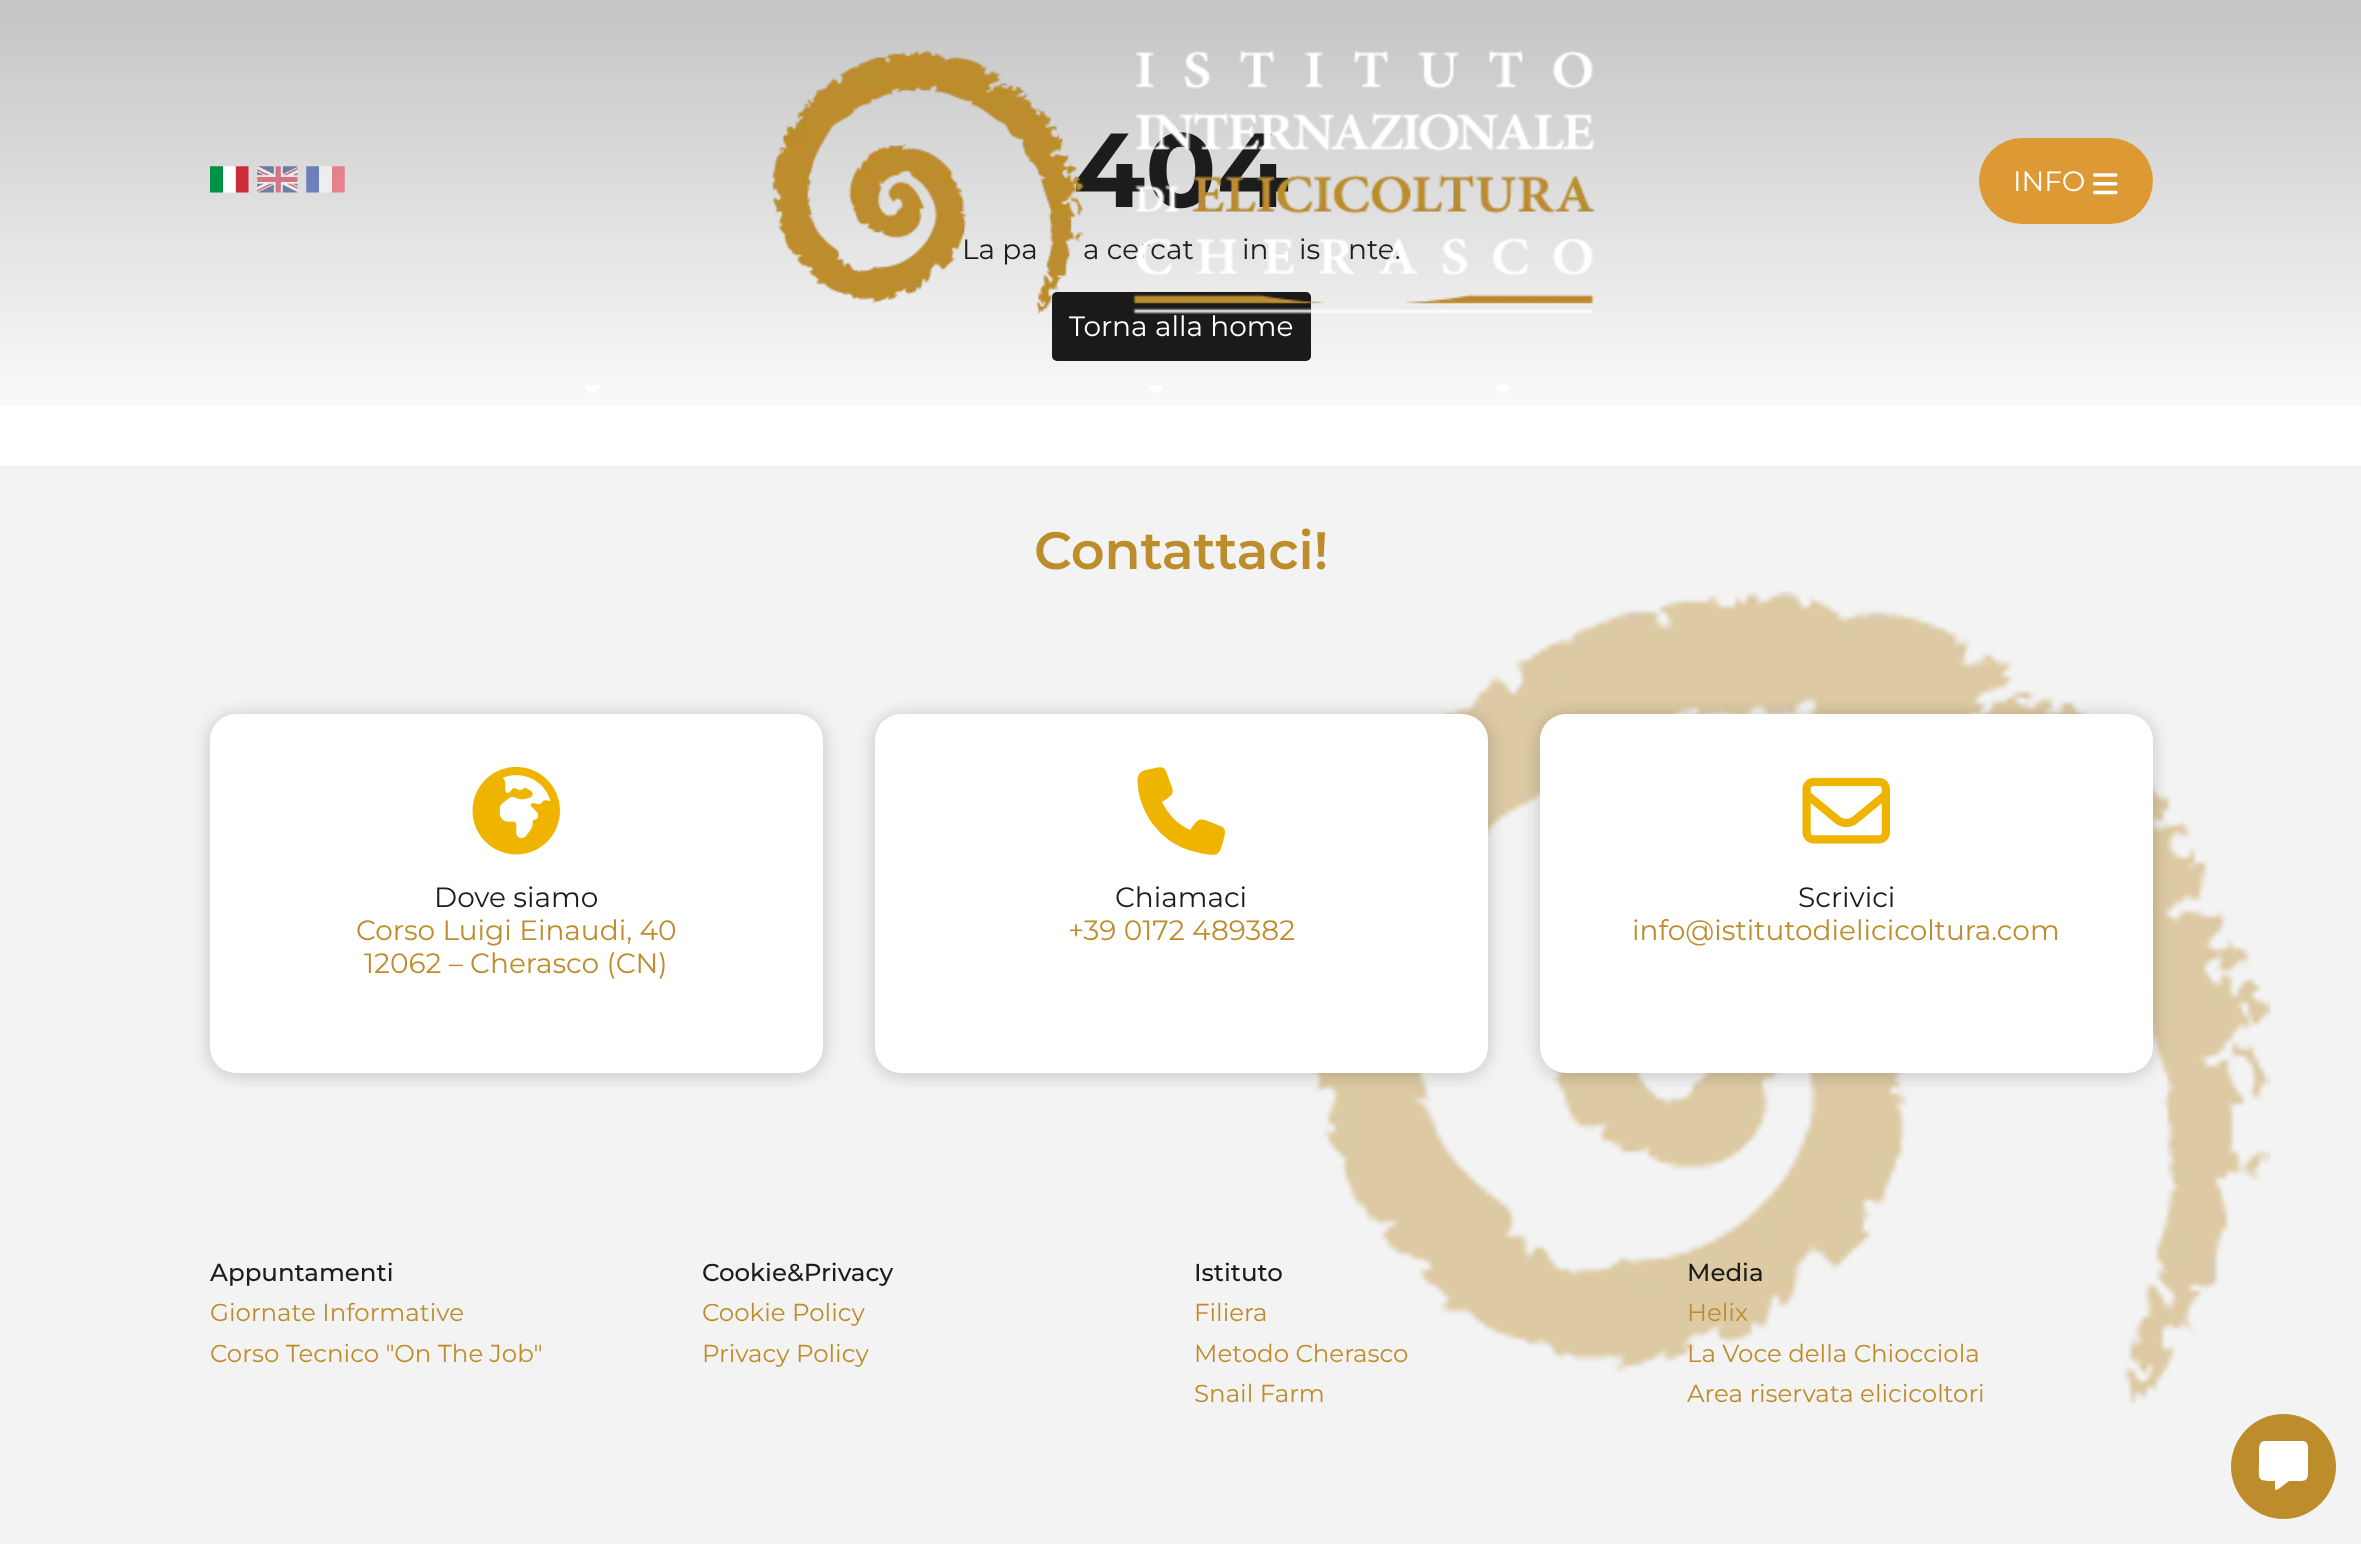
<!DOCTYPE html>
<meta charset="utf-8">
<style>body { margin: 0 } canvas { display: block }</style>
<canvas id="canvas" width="2361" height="1544"></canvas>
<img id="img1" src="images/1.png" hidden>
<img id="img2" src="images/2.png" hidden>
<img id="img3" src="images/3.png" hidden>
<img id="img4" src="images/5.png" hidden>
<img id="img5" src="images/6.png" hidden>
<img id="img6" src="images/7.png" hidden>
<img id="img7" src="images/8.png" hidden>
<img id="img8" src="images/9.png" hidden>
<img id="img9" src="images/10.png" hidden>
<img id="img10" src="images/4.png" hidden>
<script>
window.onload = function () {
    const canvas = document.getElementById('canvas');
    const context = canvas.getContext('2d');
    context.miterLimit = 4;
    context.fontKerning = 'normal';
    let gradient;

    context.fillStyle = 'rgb(255, 255, 255)';
    context.fillRect(0, 0, 2361, 1544);
    context.fillStyle = 'rgb(28, 28, 28)';
    context.beginPath();
    context.roundRect(1052, 292, 259, 69, 5);
    context.fill();
    gradient = context.createLinearGradient(1181, 448, 1181, 0);
    gradient.addColorStop(0, 'rgba(0, 0, 0, 0)');
    gradient.addColorStop(1, 'rgba(0, 0, 0, 0.23)');
    context.fillStyle = gradient;
    context.fillRect(0, 0, 2361, 406);
    context.drawImage(document.getElementById('img1'), 210, 166, 39, 27);
    context.drawImage(document.getElementById('img2'), 257, 166, 41, 27);
    context.drawImage(document.getElementById('img3'), 306, 166, 39, 27);
    context.fillStyle = 'rgb(221, 153, 51)';
    context.beginPath();
    context.roundRect(1979, 138, 174, 86, 43);
    context.fill();
    context.drawImage(document.getElementById('img4'), 2093, 173, 25, 22);
    context.drawImage(document.getElementById('img5'), 585, 385, 15, 9);
    context.drawImage(document.getElementById('img6'), 1148, 385, 15, 9);
    context.drawImage(document.getElementById('img5'), 1495, 385, 15, 9);
    context.fillStyle = 'rgb(243, 243, 243)';
    context.fillRect(0, 466, 2361, 1078);
    context.drawImage(document.getElementById('img7'), 1312, 591, 959, 813);
    context.fillStyle = 'rgba(0, 0, 0, 0.2)';
    context.filter = 'blur(9px)';
    context.beginPath();
    context.roundRect(210, 716, 613, 359, 26);
    context.fill();
    context.filter = 'none';
    context.fillStyle = 'rgb(255, 255, 255)';
    context.beginPath();
    context.roundRect(210, 714, 613, 359, 26);
    context.fill();
    context.drawImage(document.getElementById('img8'), 472, 766, 88, 89);
    context.fillStyle = 'rgba(0, 0, 0, 0.2)';
    context.filter = 'blur(9px)';
    context.beginPath();
    context.roundRect(875, 716, 613, 359, 26);
    context.fill();
    context.filter = 'none';
    context.fillStyle = 'rgb(255, 255, 255)';
    context.beginPath();
    context.roundRect(875, 714, 613, 359, 26);
    context.fill();
    context.fillStyle = 'rgb(239, 180, 0)';
    context.beginPath();
    context.moveTo(1166, 771);
    context.bezierCurveTo(1164, 766, 1159, 767, 1155, 768);
    context.bezierCurveTo(1151, 769, 1143, 770, 1140, 773);
    context.bezierCurveTo(1136, 777, 1138, 784, 1138, 788);
    context.bezierCurveTo(1141, 811, 1155, 832, 1175, 844);
    context.bezierCurveTo(1184, 849, 1194, 852, 1204, 854);
    context.bezierCurveTo(1219, 856, 1219, 855, 1223, 842);
    context.bezierCurveTo(1227, 828, 1226, 828, 1213, 823);
    context.bezierCurveTo(1198, 817, 1199, 818, 1190, 830);
    context.bezierCurveTo(1177, 824, 1168, 814, 1162, 802);
    context.bezierCurveTo(1169, 797, 1176, 795, 1171, 785);
    context.closePath();
    context.fill();
    context.fillStyle = 'rgba(0, 0, 0, 0.2)';
    context.filter = 'blur(9px)';
    context.beginPath();
    context.roundRect(1540, 716, 613, 359, 26);
    context.fill();
    context.filter = 'none';
    context.fillStyle = 'rgb(255, 255, 255)';
    context.beginPath();
    context.roundRect(1540, 714, 613, 359, 26);
    context.fill();
    context.drawImage(document.getElementById('img9'), 1802, 777, 88, 67);
    context.fillStyle = 'rgb(189, 141, 44)';
    context.beginPath();
    context.arc(2283.5, 1466.5, 52.5, 0, 2 * Math.PI);
    context.fill();
    context.fillStyle = 'rgb(255, 255, 255)';
    context.beginPath();
    context.moveTo(2265, 1441);
    context.bezierCurveTo(2259, 1441, 2259, 1447, 2259, 1452);
    context.lineTo(2259, 1461);
    context.bezierCurveTo(2259, 1480, 2256, 1481, 2275, 1481);
    context.lineTo(2275, 1489);
    context.bezierCurveTo(2275, 1492, 2281, 1487, 2281, 1487);
    context.lineTo(2289, 1481);
    context.bezierCurveTo(2310, 1481, 2308, 1483, 2308, 1461);
    context.lineTo(2308, 1452);
    context.bezierCurveTo(2308, 1448, 2309, 1442, 2303, 1441);
    context.closePath();
    context.fill();
    context.font = 'bold 105px Montserrat';
    context.fillStyle = 'rgb(28, 28, 28)';
    context.fillText('404', 1073, 207);
    context.font = '28px Montserrat';
    context.fillText('La pa', 962, 259);
    context.fillText('a cercat', 1083, 259);
    context.fillText('in', 1242, 259);
    context.fillText('is', 1299, 259);
    context.fillText('nte.', 1348, 259);
    context.fillStyle = 'rgb(255, 255, 255)';
    context.fillText('Torna alla home', 1069, 336);
    context.drawImage(document.getElementById('img10'), 771, 50, 824, 264);
    context.fillText('INFO', 2013, 191);
    context.font = '600 52.5px Montserrat';
    context.fillStyle = 'rgb(189, 141, 44)';
    context.fillText('Contattaci!', 1034, 569);
    context.font = '28px Montserrat';
    context.fillStyle = 'rgb(28, 28, 28)';
    context.fillText('Dove siamo', 434, 907);
    context.fillStyle = 'rgb(189, 141, 44)';
    context.fillText('Corso Luigi Einaudi, 40', 356, 940);
    context.fillText('12062 – Cherasco (CN)', 364, 973);
    context.fillStyle = 'rgb(28, 28, 28)';
    context.fillText('Chiamaci', 1115, 907);
    context.fillStyle = 'rgb(189, 141, 44)';
    context.fillText('+39 0172 489382', 1068, 940);
    context.fillStyle = 'rgb(28, 28, 28)';
    context.fillText('Scrivici', 1798, 907);
    context.fillStyle = 'rgb(189, 141, 44)';
    context.fillText('info@istitutodielicicoltura.com', 1632, 940);
    context.font = '500 24.5px Montserrat';
    context.fillStyle = 'rgb(28, 28, 28)';
    context.fillText('Appuntamenti', 210, 1281);
    context.font = '24.5px Montserrat';
    context.fillStyle = 'rgb(189, 141, 44)';
    context.fillText('Giornate Informative', 210, 1321);
    context.fillText('Corso Tecnico "On The Job"', 210, 1362);
    context.font = '500 24.5px Montserrat';
    context.fillStyle = 'rgb(28, 28, 28)';
    context.fillText('Cookie&Privacy', 702, 1281);
    context.font = '24.5px Montserrat';
    context.fillStyle = 'rgb(189, 141, 44)';
    context.fillText('Cookie Policy', 702, 1321);
    context.fillText('Privacy Policy', 702, 1362);
    context.font = '500 24.5px Montserrat';
    context.fillStyle = 'rgb(28, 28, 28)';
    context.fillText('Istituto', 1194, 1281);
    context.font = '24.5px Montserrat';
    context.fillStyle = 'rgb(189, 141, 44)';
    context.fillText('Filiera', 1194, 1321);
    context.fillText('Metodo Cherasco', 1194, 1362);
    context.fillText('Snail Farm', 1194, 1402);
    context.font = '500 24.5px Montserrat';
    context.fillStyle = 'rgb(28, 28, 28)';
    context.fillText('Media', 1687, 1281);
    context.font = '24.5px Montserrat';
    context.fillStyle = 'rgb(189, 141, 44)';
    context.fillText('Helix', 1687, 1321);
    context.fillText('La Voce della Chiocciola', 1687, 1362);
    context.fillText('Area riservata elicicoltori', 1687, 1402);
};
</script>
